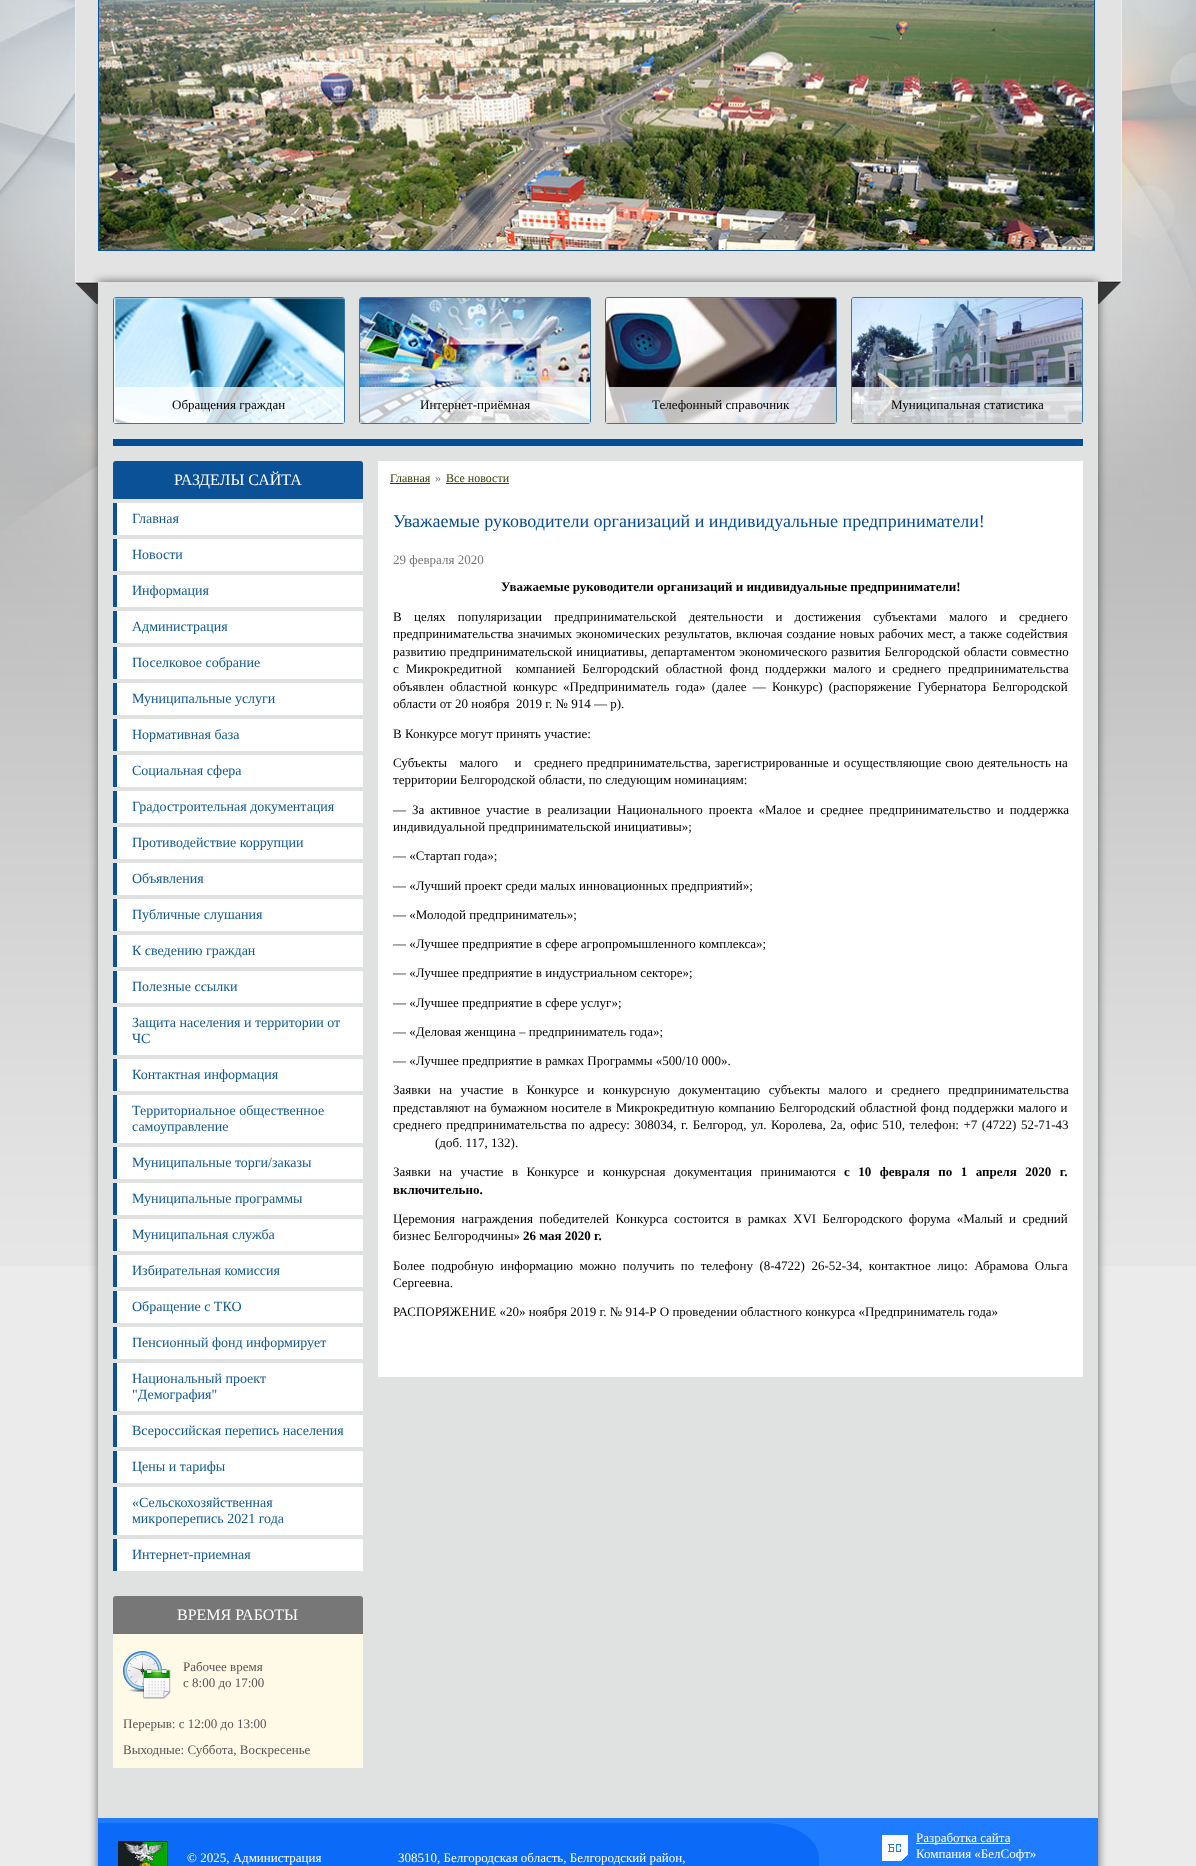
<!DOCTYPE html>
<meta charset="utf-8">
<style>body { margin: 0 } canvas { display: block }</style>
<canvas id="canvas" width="1196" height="1866"></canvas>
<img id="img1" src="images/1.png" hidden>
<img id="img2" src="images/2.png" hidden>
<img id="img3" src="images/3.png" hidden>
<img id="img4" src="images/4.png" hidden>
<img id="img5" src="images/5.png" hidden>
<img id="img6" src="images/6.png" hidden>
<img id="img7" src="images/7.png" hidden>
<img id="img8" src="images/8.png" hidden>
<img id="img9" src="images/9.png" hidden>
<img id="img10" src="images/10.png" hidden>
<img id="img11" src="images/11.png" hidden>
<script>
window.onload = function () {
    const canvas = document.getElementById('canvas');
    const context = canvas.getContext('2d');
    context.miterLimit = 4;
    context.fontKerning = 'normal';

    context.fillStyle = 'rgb(235, 235, 235)';
    context.fillRect(0, 0, 1196, 1866);
    context.drawImage(document.getElementById('img1'), 0, 0, 1196, 1266);
    context.drawImage(document.getElementById('img2'), 75, 0, 1047, 305);
    context.strokeStyle = 'rgb(9, 80, 153)';
    context.strokeRect(98.5, -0.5, 996, 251);
    context.drawImage(document.getElementById('img3'), 99, 0, 995, 250);
    context.fillStyle = 'rgba(50, 50, 50, 0.75)';
    context.filter = 'blur(5px)';
    context.beginPath();
    context.rect(98, 282, 1000, 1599);
    context.fill();
    context.filter = 'none';
    context.fillStyle = 'rgb(224, 226, 225)';
    context.fillRect(98, 282, 1000, 1536);
    context.beginPath();
    context.roundRect(113.5, 297.5, 231, 126, 2.5);
    context.strokeStyle = 'rgb(53, 115, 177)';
    context.stroke();
    context.drawImage(document.getElementById('img4'), 114, 298, 230, 125);
    context.fillStyle = 'rgba(255, 255, 255, 0.75)';
    context.fillRect(114, 387, 230, 36);
    context.beginPath();
    context.roundRect(359.5, 297.5, 231, 126, 2.5);
    context.stroke();
    context.drawImage(document.getElementById('img5'), 360, 298, 230, 125);
    context.fillRect(360, 387, 230, 36);
    context.beginPath();
    context.roundRect(605.5, 297.5, 231, 126, 2.5);
    context.stroke();
    context.drawImage(document.getElementById('img6'), 606, 298, 230, 125);
    context.fillRect(606, 387, 230, 36);
    context.beginPath();
    context.roundRect(851.5, 297.5, 231, 126, 2.5);
    context.stroke();
    context.drawImage(document.getElementById('img7'), 852, 298, 230, 125);
    context.fillRect(852, 387, 230, 36);
    context.fillStyle = 'rgb(4, 76, 149)';
    context.fillRect(113, 439, 970, 7);
    context.fillStyle = 'rgb(11, 81, 151)';
    context.beginPath();
    context.roundRect(113, 461, 250, 38, [3, 3, 0, 0]);
    context.fill();
    context.fillStyle = 'rgb(255, 255, 255)';
    context.fillRect(117, 503, 246, 32);
    context.fillStyle = 'rgb(11, 81, 151)';
    context.fillRect(113, 503, 4, 32);
    context.fillStyle = 'rgb(255, 255, 255)';
    context.fillRect(117, 539, 246, 32);
    context.fillStyle = 'rgb(11, 81, 151)';
    context.fillRect(113, 539, 4, 32);
    context.fillStyle = 'rgb(255, 255, 255)';
    context.fillRect(117, 575, 246, 32);
    context.fillStyle = 'rgb(11, 81, 151)';
    context.fillRect(113, 575, 4, 32);
    context.fillStyle = 'rgb(255, 255, 255)';
    context.fillRect(117, 611, 246, 32);
    context.fillStyle = 'rgb(11, 81, 151)';
    context.fillRect(113, 611, 4, 32);
    context.fillStyle = 'rgb(255, 255, 255)';
    context.fillRect(117, 647, 246, 32);
    context.fillStyle = 'rgb(11, 81, 151)';
    context.fillRect(113, 647, 4, 32);
    context.fillStyle = 'rgb(255, 255, 255)';
    context.fillRect(117, 683, 246, 32);
    context.fillStyle = 'rgb(11, 81, 151)';
    context.fillRect(113, 683, 4, 32);
    context.fillStyle = 'rgb(255, 255, 255)';
    context.fillRect(117, 719, 246, 32);
    context.fillStyle = 'rgb(11, 81, 151)';
    context.fillRect(113, 719, 4, 32);
    context.fillStyle = 'rgb(255, 255, 255)';
    context.fillRect(117, 755, 246, 32);
    context.fillStyle = 'rgb(11, 81, 151)';
    context.fillRect(113, 755, 4, 32);
    context.fillStyle = 'rgb(255, 255, 255)';
    context.fillRect(117, 791, 246, 32);
    context.fillStyle = 'rgb(11, 81, 151)';
    context.fillRect(113, 791, 4, 32);
    context.fillStyle = 'rgb(255, 255, 255)';
    context.fillRect(117, 827, 246, 32);
    context.fillStyle = 'rgb(11, 81, 151)';
    context.fillRect(113, 827, 4, 32);
    context.fillStyle = 'rgb(255, 255, 255)';
    context.fillRect(117, 863, 246, 32);
    context.fillStyle = 'rgb(11, 81, 151)';
    context.fillRect(113, 863, 4, 32);
    context.fillStyle = 'rgb(255, 255, 255)';
    context.fillRect(117, 899, 246, 32);
    context.fillStyle = 'rgb(11, 81, 151)';
    context.fillRect(113, 899, 4, 32);
    context.fillStyle = 'rgb(255, 255, 255)';
    context.fillRect(117, 935, 246, 32);
    context.fillStyle = 'rgb(11, 81, 151)';
    context.fillRect(113, 935, 4, 32);
    context.fillStyle = 'rgb(255, 255, 255)';
    context.fillRect(117, 971, 246, 32);
    context.fillStyle = 'rgb(11, 81, 151)';
    context.fillRect(113, 971, 4, 32);
    context.fillStyle = 'rgb(255, 255, 255)';
    context.fillRect(117, 1007, 246, 48);
    context.fillStyle = 'rgb(11, 81, 151)';
    context.fillRect(113, 1007, 4, 48);
    context.fillStyle = 'rgb(255, 255, 255)';
    context.fillRect(117, 1059, 246, 32);
    context.fillStyle = 'rgb(11, 81, 151)';
    context.fillRect(113, 1059, 4, 32);
    context.fillStyle = 'rgb(255, 255, 255)';
    context.fillRect(117, 1095, 246, 48);
    context.fillStyle = 'rgb(11, 81, 151)';
    context.fillRect(113, 1095, 4, 48);
    context.fillStyle = 'rgb(255, 255, 255)';
    context.fillRect(117, 1147, 246, 32);
    context.fillStyle = 'rgb(11, 81, 151)';
    context.fillRect(113, 1147, 4, 32);
    context.fillStyle = 'rgb(255, 255, 255)';
    context.fillRect(117, 1183, 246, 32);
    context.fillStyle = 'rgb(11, 81, 151)';
    context.fillRect(113, 1183, 4, 32);
    context.fillStyle = 'rgb(255, 255, 255)';
    context.fillRect(117, 1219, 246, 32);
    context.fillStyle = 'rgb(11, 81, 151)';
    context.fillRect(113, 1219, 4, 32);
    context.fillStyle = 'rgb(255, 255, 255)';
    context.fillRect(117, 1255, 246, 32);
    context.fillStyle = 'rgb(11, 81, 151)';
    context.fillRect(113, 1255, 4, 32);
    context.fillStyle = 'rgb(255, 255, 255)';
    context.fillRect(117, 1291, 246, 32);
    context.fillStyle = 'rgb(11, 81, 151)';
    context.fillRect(113, 1291, 4, 32);
    context.fillStyle = 'rgb(255, 255, 255)';
    context.fillRect(117, 1327, 246, 32);
    context.fillStyle = 'rgb(11, 81, 151)';
    context.fillRect(113, 1327, 4, 32);
    context.fillStyle = 'rgb(255, 255, 255)';
    context.fillRect(117, 1363, 246, 48);
    context.fillStyle = 'rgb(11, 81, 151)';
    context.fillRect(113, 1363, 4, 48);
    context.fillStyle = 'rgb(255, 255, 255)';
    context.fillRect(117, 1415, 246, 32);
    context.fillStyle = 'rgb(11, 81, 151)';
    context.fillRect(113, 1415, 4, 32);
    context.fillStyle = 'rgb(255, 255, 255)';
    context.fillRect(117, 1451, 246, 32);
    context.fillStyle = 'rgb(11, 81, 151)';
    context.fillRect(113, 1451, 4, 32);
    context.fillStyle = 'rgb(255, 255, 255)';
    context.fillRect(117, 1487, 246, 48);
    context.fillStyle = 'rgb(11, 81, 151)';
    context.fillRect(113, 1487, 4, 48);
    context.fillStyle = 'rgb(255, 255, 255)';
    context.fillRect(117, 1539, 246, 32);
    context.fillStyle = 'rgb(11, 81, 151)';
    context.fillRect(113, 1539, 4, 32);
    context.fillStyle = 'rgb(119, 119, 119)';
    context.beginPath();
    context.roundRect(113, 1596, 250, 38, [3, 3, 0, 0]);
    context.fill();
    context.fillStyle = 'rgb(255, 249, 231)';
    context.fillRect(113, 1634, 250, 134);
    context.drawImage(document.getElementById('img8'), 123, 1651, 48, 48);
    context.fillStyle = 'rgb(255, 255, 255)';
    context.fillRect(378, 461, 705, 916);
    context.fillStyle = 'rgb(52, 63, 0)';
    context.fillRect(390, 483, 40, 1);
    context.fillRect(446, 483, 63, 1);
    context.fillStyle = 'rgb(31, 123, 255)';
    context.fillRect(98, 1818, 1000, 48);
    context.drawImage(document.getElementById('img9'), 98, 1823, 721, 43);
    context.drawImage(document.getElementById('img10'), 118, 1841, 50, 25);
    context.drawImage(document.getElementById('img11'), 882, 1835, 26, 26);
    context.fillStyle = 'rgb(255, 255, 255)';
    context.fillRect(916, 1843, 94, 1);
    context.font = '13px Liberation Serif';
    context.fillStyle = 'rgb(0, 0, 0)';
    context.fillText('Обращения граждан', 172, 409);
    context.fillText('Интернет-приёмная', 420, 409);
    context.fillText('Телефонный справочник', 652, 409);
    context.fillText('Муниципальная статистика', 891, 409);
    context.font = '16px Liberation Serif';
    context.fillStyle = 'rgb(255, 255, 255)';
    context.fillText('РАЗДЕЛЫ САЙТА', 174, 485);
    context.font = '14px Liberation Serif';
    context.fillStyle = 'rgb(16, 90, 143)';
    context.fillText('Главная', 132, 523);
    context.fillText('Новости', 132, 559);
    context.fillText('Информация', 132, 595);
    context.fillText('Администрация', 132, 631);
    context.fillText('Поселковое собрание', 132, 667);
    context.fillText('Муниципальные услуги', 132, 703);
    context.fillText('Нормативная база', 132, 739);
    context.fillText('Социальная сфера', 132, 775);
    context.fillText('Градостроительная документация', 132, 811);
    context.fillText('Противодействие коррупции', 132, 847);
    context.fillText('Объявления', 132, 883);
    context.fillText('Публичные слушания', 132, 919);
    context.fillText('К сведению граждан', 132, 955);
    context.fillText('Полезные ссылки', 132, 991);
    context.fillText('Защита населения и территории от', 132, 1027);
    context.fillText('ЧС', 132, 1043);
    context.fillText('Контактная информация', 132, 1079);
    context.fillText('Территориальное общественное', 132, 1115);
    context.fillText('самоуправление', 132, 1131);
    context.fillText('Муниципальные торги/заказы', 132, 1167);
    context.fillText('Муниципальные программы', 132, 1203);
    context.fillText('Муниципальная служба', 132, 1239);
    context.fillText('Избирательная комиссия', 132, 1275);
    context.fillText('Обращение с ТКО', 132, 1311);
    context.fillText('Пенсионный фонд информирует', 132, 1347);
    context.fillText('Национальный проект', 132, 1383);
    context.fillText('"Демография"', 132, 1399);
    context.fillText('Всероссийская перепись населения', 132, 1435);
    context.fillText('Цены и тарифы', 132, 1471);
    context.fillText('«Сельскохозяйственная', 132, 1507);
    context.fillText('микроперепись 2021 года', 132, 1523);
    context.fillText('Интернет-приемная', 132, 1559);
    context.font = '16px Liberation Serif';
    context.fillStyle = 'rgb(255, 255, 255)';
    context.fillText('ВРЕМЯ РАБОТЫ', 177, 1620);
    context.font = '13px Liberation Serif';
    context.fillStyle = 'rgb(85, 85, 85)';
    context.fillText('Рабочее время', 183, 1671);
    context.fillText('с 8:00 до 17:00', 183, 1687);
    context.fillText('Перерыв: с 12:00 до 13:00', 123, 1728);
    context.fillText('Выходные: Суббота, Воскресенье', 123, 1754);
    context.font = '12px Liberation Serif';
    context.fillStyle = 'rgb(52, 63, 0)';
    context.fillText('Главная', 390, 482);
    context.fillStyle = 'rgb(119, 119, 119)';
    context.fillText('»', 435, 482);
    context.fillStyle = 'rgb(52, 63, 0)';
    context.fillText('Все новости', 446, 482);
    context.font = '18px Liberation Serif';
    context.fillStyle = 'rgb(4, 76, 149)';
    context.fillText('Уважаемые руководители организаций и индивидуальные предприниматели!', 393, 527);
    context.font = '13px Liberation Serif';
    context.fillStyle = 'rgb(119, 119, 119)';
    context.fillText('29 февраля 2020', 393, 564);
    context.font = 'bold 13px Liberation Serif';
    context.fillStyle = 'rgb(0, 0, 0)';
    context.fillText('Уважаемые руководители организаций и индивидуальные предприниматели!', 501, 591);
    context.wordSpacing = '9px';
    context.font = '13px Liberation Serif';
    context.fillText('В целях популяризации предпринимательской деятельности и достижения субъектами малого и среднего', 393, 621);
    context.wordSpacing = '0.75px';
    context.fillText('предпринимательства значимых экономических результатов, включая создание новых рабочих мест, а также содействия', 393, 638);
    context.fillText('развитию предпринимательской инициативы, департаментом экономического развития Белгородской области совместно', 393, 656);
    context.wordSpacing = '3.75px';
    context.fillText('с Микрокредитной  компанией Белгородский областной фонд поддержки малого и среднего предпринимательства', 393, 673);
    context.wordSpacing = '2.9px';
    context.fillText('объявлен областной конкурс «Предприниматель года» (далее — Конкурс) (распоряжение Губернатора Белгородской', 393, 691);
    context.wordSpacing = '0px';
    context.fillText('области от 20 ноября  2019 г. № 914 — р).', 393, 708);
    context.fillText('В Конкурсе могут принять участие:', 393, 738);
    context.wordSpacing = '0.9px';
    context.fillText('Субъекты   малого    и   среднего предпринимательства, зарегистрированные и осуществляющие свою деятельность на', 393, 767);
    context.wordSpacing = '0px';
    context.fillText('территории Белгородской области, по следующим номинациям:', 393, 784);
    context.wordSpacing = '2.75px';
    context.fillText('— За активное участие в реализации Национального проекта «Малое и среднее предпринимательство и поддержка', 393, 814);
    context.wordSpacing = '0px';
    context.fillText('индивидуальной предпринимательской инициативы»;', 393, 831);
    context.fillText('— «Стартап года»;', 393, 860);
    context.fillText('— «Лучший проект среди малых инновационных предприятий»;', 393, 890);
    context.fillText('— «Молодой предприниматель»;', 393, 919);
    context.fillText('— «Лучшее предприятие в сфере агропромышленного комплекса»;', 393, 948);
    context.fillText('— «Лучшее предприятие в индустриальном секторе»;', 393, 977);
    context.fillText('— «Лучшее предприятие в сфере услуг»;', 393, 1007);
    context.fillText('— «Деловая женщина – предприниматель года»;', 393, 1036);
    context.fillText('— «Лучшее предприятие в рамках Программы «500/10 000».', 393, 1065);
    context.wordSpacing = '5.25px';
    context.fillText('Заявки на участие в Конкурсе и конкурсную документацию субъекты малого и среднего предпринимательства', 393, 1094);
    context.wordSpacing = '0.8px';
    context.fillText('представляют на бумажном носителе в Микрокредитную компанию Белгородский областной фонд поддержки малого и', 393, 1112);
    context.wordSpacing = '1.25px';
    context.fillText('среднего предпринимательства по адресу: 308034, г. Белгород, ул. Королева, 2а, офис 510, телефон: +7 (4722) 52-71-43', 393, 1129);
    context.wordSpacing = '0px';
    context.fillText('(доб. 117, 132).', 435, 1147);
    context.wordSpacing = '5.25px';
    context.fillText('Заявки на участие в Конкурсе и конкурсная документация принимаются', 393, 1176);
    context.font = 'bold 13px Liberation Serif';
    context.fillText('с 10 февраля по 1 апреля 2020 г.', 844, 1176);
    context.wordSpacing = '0px';
    context.fillText('включительно.', 393, 1194);
    context.wordSpacing = '3.1px';
    context.font = '13px Liberation Serif';
    context.fillText('Церемония награждения победителей Конкурса состоится в рамках XVI Белгородского форума «Малый и средний', 393, 1223);
    context.wordSpacing = '0px';
    context.fillText('бизнес Белгородчины»', 393, 1240);
    context.font = 'bold 13px Liberation Serif';
    context.fillText('26 мая 2020 г.', 523, 1240);
    context.wordSpacing = '3.25px';
    context.font = '13px Liberation Serif';
    context.fillText('Более подробную информацию можно получить по телефону (8-4722) 26-52-34, контактное лицо: Абрамова Ольга', 393, 1270);
    context.wordSpacing = '0px';
    context.fillText('Сергеевна.', 393, 1287);
    context.fillText('РАСПОРЯЖЕНИЕ «20» ноября 2019 г. № 914-Р О проведении областного конкурса «Предприниматель года»', 393, 1316);
    context.fillStyle = 'rgb(255, 255, 255)';
    context.fillText('© 2025, Администрация', 187, 1862);
    context.fillText('308510, Белгородская область, Белгородский район,', 398, 1862);
    context.fillText('Разработка сайта', 916, 1842);
    context.fillText('Компания «БелСофт»', 916, 1858);
};
</script>
